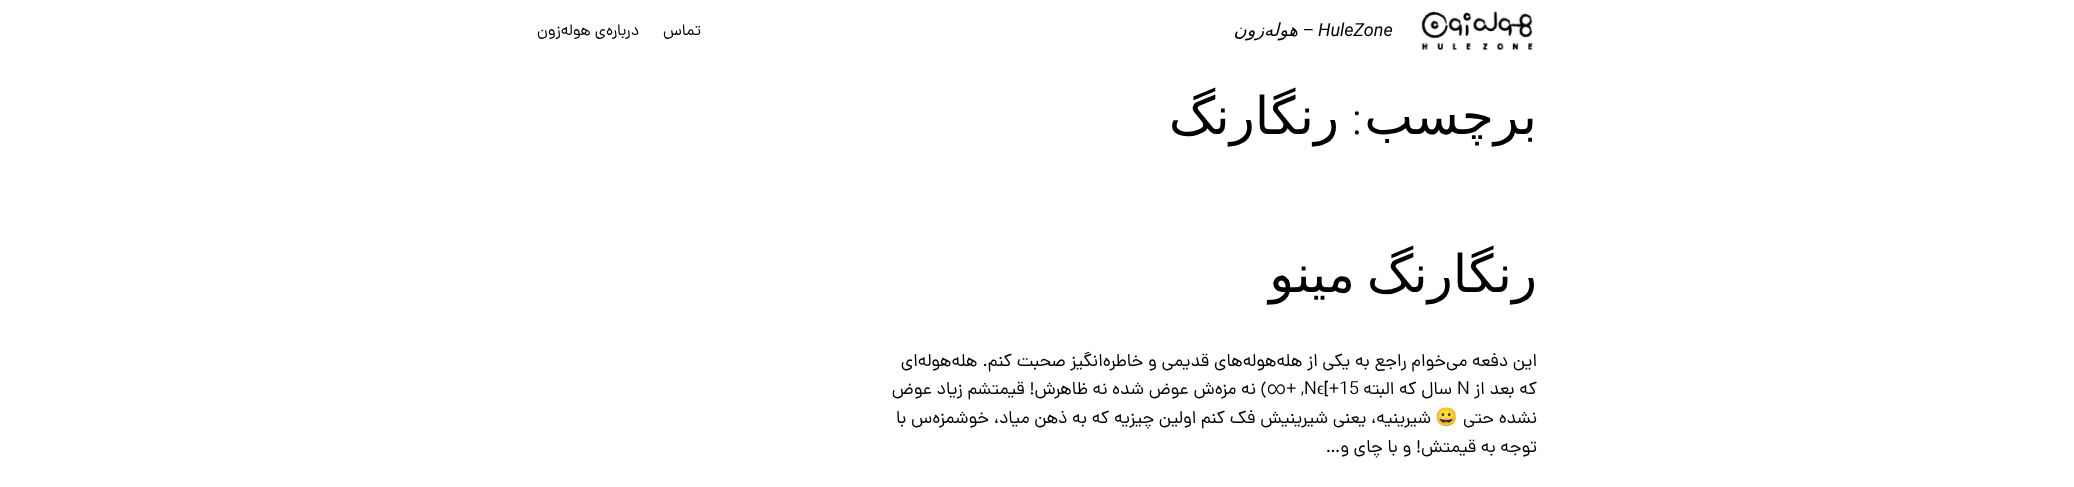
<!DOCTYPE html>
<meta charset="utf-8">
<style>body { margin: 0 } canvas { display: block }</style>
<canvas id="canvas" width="2074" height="487"></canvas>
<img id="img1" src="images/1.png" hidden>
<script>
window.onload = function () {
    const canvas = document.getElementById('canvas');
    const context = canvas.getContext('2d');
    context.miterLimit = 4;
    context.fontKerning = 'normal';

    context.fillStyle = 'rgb(255, 255, 255)';
    context.fillRect(0, 0, 2074, 487);
    context.drawImage(document.getElementById('img1'), 1421, 11, 112, 40);
    context.font = 'italic 18px Roboto';
    context.fillStyle = 'rgb(0, 0, 0)';
    context.fillText('HuleZone', 1318, 36);
    context.direction = 'rtl';
    context.fillText('–', 1314, 36);
    context.font = 'italic 18px DejaVu Sans';
    context.fillText('هوله‌زون', 1298, 36);
    context.font = '16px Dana';
    context.fillText('تماس', 701, 35);
    context.fillText('درباره‌ی هوله‌زون', 639, 35);
    context.font = '52px DejaVu Sans';
    context.fillText('برچسب', 1537, 134);
    context.font = '300 52px "Source Serif 4"';
    context.fillText(':', 1364, 134);
    context.font = '52px DejaVu Sans';
    context.fillText('رنگارنگ', 1339, 134);
    context.wordSpacing = '-5px';
    context.fillText('رنگارنگ مینو', 1537, 292);
    context.wordSpacing = '0px';
    context.font = '18px Dana';
    context.fillText('این دفعه می‌خوام راجع به یکی از هله‌هوله‌های قدیمی و خاطره‌انگیز صحبت کنم. هله‌هوله‌ای', 1537, 366);
    context.fillText('که بعد از', 1537, 394);
    context.direction = 'ltr';
    context.fillText('N', 1457, 394);
    context.direction = 'rtl';
    context.fillText('سال که البته', 1452, 394);
    context.direction = 'ltr';
    context.fillText('[+15', 1324, 394);
    context.font = '18px Liberation Serif';
    context.fillText('ϵ', 1317, 394);
    context.font = '18px Dana';
    context.fillText('N', 1304, 394);
    context.direction = 'rtl';
    context.fillText(', +∞) نه مزه‌ش عوض شده نه ظاهرش! قیمتشم زیاد عوض', 1304, 394);
    context.fillText('نشده حتی', 1537, 423);
    context.font = '18px Noto Color Emoji';
    context.fillText('😀', 1458, 423);
    context.font = '18px Dana';
    context.fillText('شیرینیه، یعنی شیرینیش فک کنم اولین چیزیه که به ذهن میاد، خوشمزه‌س با', 1431, 423);
    context.fillText('توجه به قیمتش! و با چای و…', 1537, 452);
};
</script>
